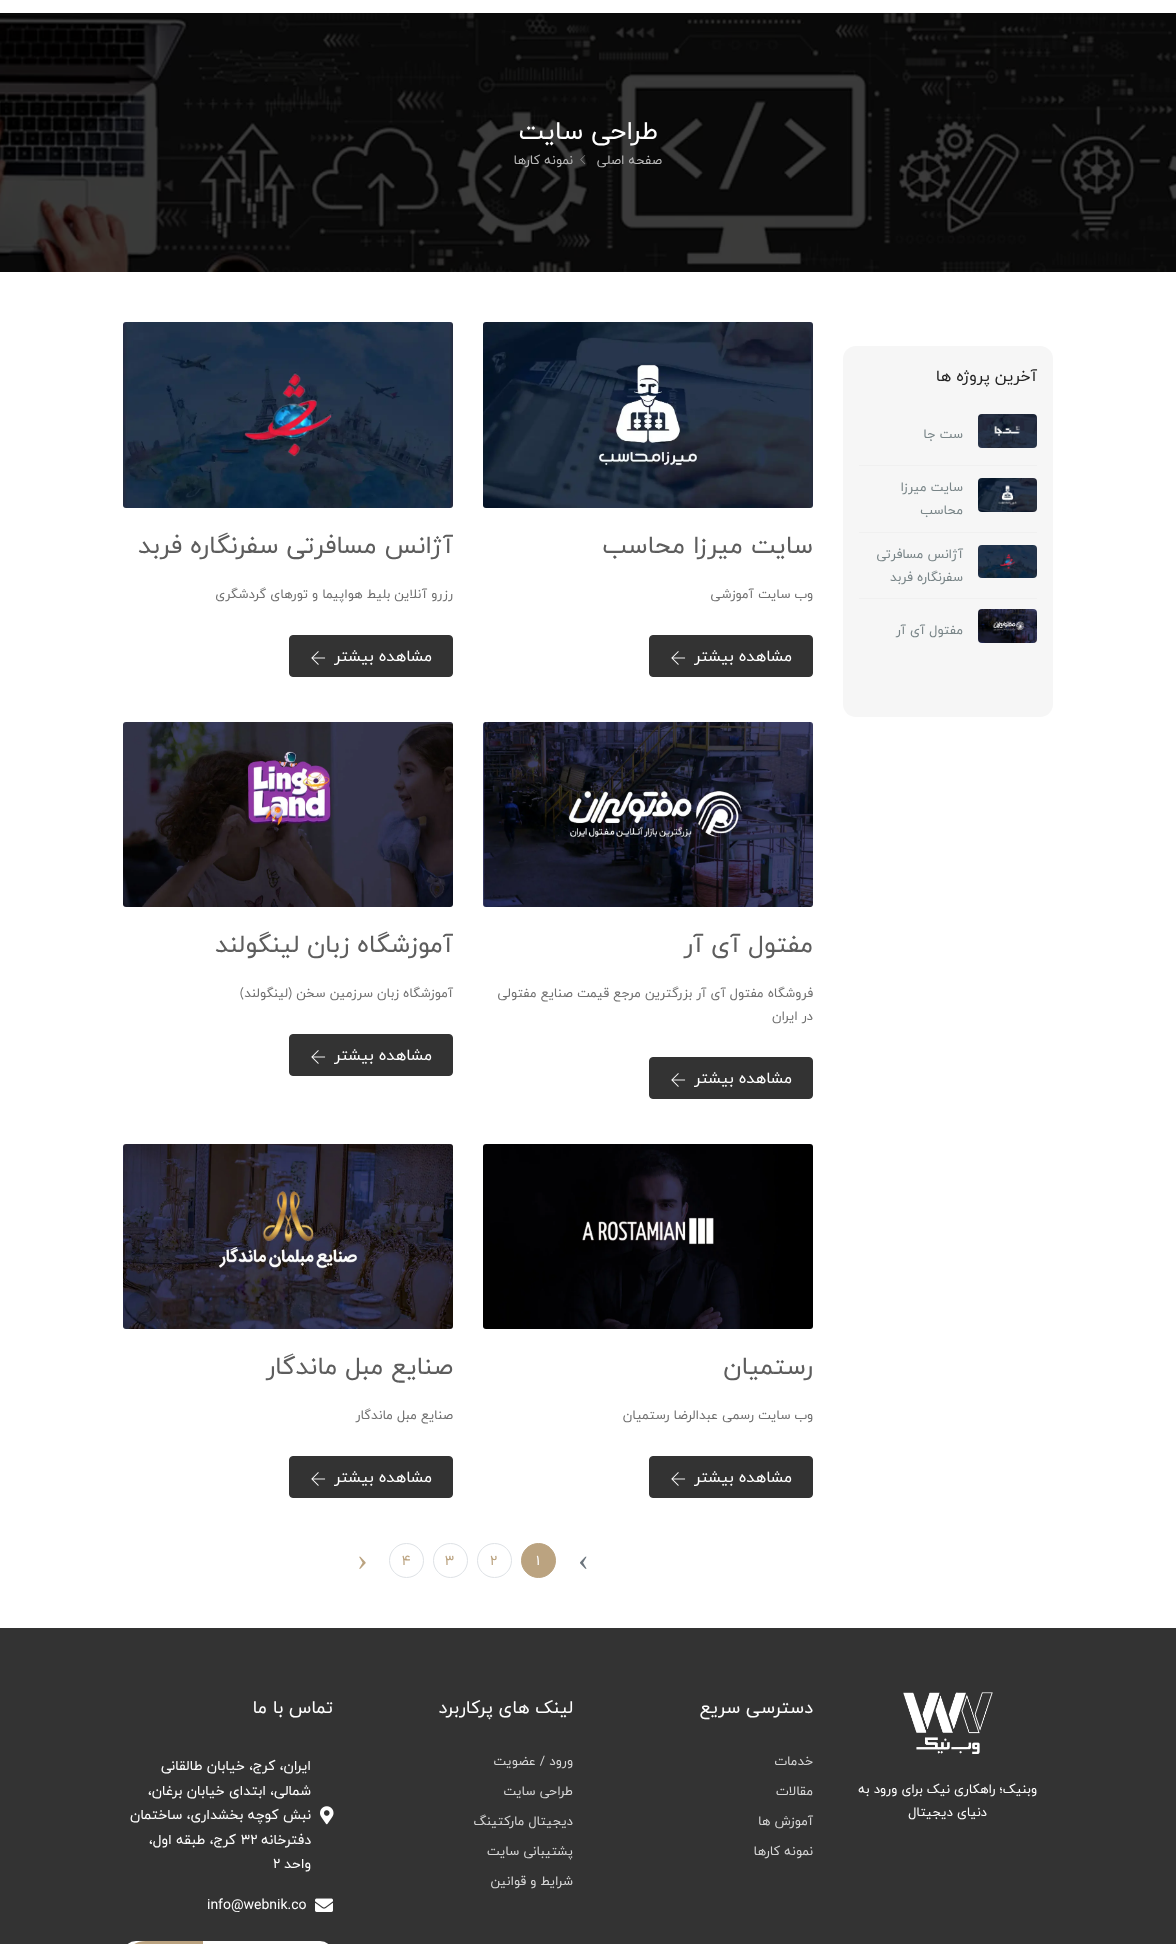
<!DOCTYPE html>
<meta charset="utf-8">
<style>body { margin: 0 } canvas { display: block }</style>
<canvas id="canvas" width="1176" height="1944"></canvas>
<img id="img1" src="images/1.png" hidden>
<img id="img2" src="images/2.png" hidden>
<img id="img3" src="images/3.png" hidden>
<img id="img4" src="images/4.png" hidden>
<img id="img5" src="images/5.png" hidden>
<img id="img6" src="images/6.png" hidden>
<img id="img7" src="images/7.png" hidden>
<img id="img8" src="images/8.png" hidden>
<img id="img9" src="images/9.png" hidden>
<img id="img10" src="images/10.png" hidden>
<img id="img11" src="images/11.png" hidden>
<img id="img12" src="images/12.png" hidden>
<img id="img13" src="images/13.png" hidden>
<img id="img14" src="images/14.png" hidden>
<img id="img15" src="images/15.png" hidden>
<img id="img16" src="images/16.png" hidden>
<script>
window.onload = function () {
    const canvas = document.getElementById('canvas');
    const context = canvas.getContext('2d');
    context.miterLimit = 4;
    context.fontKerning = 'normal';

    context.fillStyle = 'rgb(255, 255, 255)';
    context.fillRect(0, 0, 1176, 1944);
    context.drawImage(document.getElementById('img1'), 0, 13, 1176, 259);
    context.drawImage(document.getElementById('img2'), 580, 155, 6, 10);
    context.fillStyle = 'rgb(246, 246, 246)';
    context.beginPath();
    context.roundRect(843, 346, 210, 371, 13);
    context.fill();
    context.fillStyle = 'rgb(240, 240, 240)';
    context.fillRect(859, 465, 178, 1);
    context.drawImage(document.getElementById('img3'), 978, 414, 59, 34);
    context.fillRect(859, 532, 178, 1);
    context.drawImage(document.getElementById('img4'), 978, 478, 59, 34);
    context.fillRect(859, 598, 178, 1);
    context.drawImage(document.getElementById('img5'), 978, 545, 59, 33);
    context.drawImage(document.getElementById('img6'), 978, 609, 59, 34);
    context.drawImage(document.getElementById('img7'), 483, 322, 330, 186);
    context.fillStyle = 'rgb(51, 51, 51)';
    context.beginPath();
    context.roundRect(649.5, 635.5, 163, 41, 3.5);
    context.fill();
    context.strokeStyle = 'rgb(51, 51, 51)';
    context.stroke();
    context.drawImage(document.getElementById('img8'), 671, 651, 15, 14);
    context.drawImage(document.getElementById('img9'), 123, 322, 330, 186);
    context.beginPath();
    context.roundRect(289.5, 635.5, 163, 41, 3.5);
    context.fill();
    context.stroke();
    context.drawImage(document.getElementById('img8'), 311, 651, 15, 14);
    context.drawImage(document.getElementById('img10'), 483, 722, 330, 185);
    context.beginPath();
    context.roundRect(649.5, 1057.5, 163, 41, 3.5);
    context.fill();
    context.stroke();
    context.drawImage(document.getElementById('img8'), 671, 1073, 15, 14);
    context.drawImage(document.getElementById('img11'), 123, 722, 330, 185);
    context.beginPath();
    context.roundRect(289.5, 1034.5, 163, 41, 3.5);
    context.fill();
    context.stroke();
    context.drawImage(document.getElementById('img8'), 311, 1050, 15, 14);
    context.drawImage(document.getElementById('img12'), 483, 1144, 330, 185);
    context.beginPath();
    context.roundRect(649.5, 1456.5, 163, 41, 3.5);
    context.fill();
    context.stroke();
    context.drawImage(document.getElementById('img8'), 671, 1472, 15, 14);
    context.drawImage(document.getElementById('img13'), 123, 1144, 330, 185);
    context.beginPath();
    context.roundRect(289.5, 1456.5, 163, 41, 3.5);
    context.fill();
    context.stroke();
    context.drawImage(document.getElementById('img8'), 311, 1472, 15, 14);
    context.fillStyle = 'rgb(187, 163, 128)';
    context.beginPath();
    context.arc(538.5, 1560.5, 17, 0, 2 * Math.PI);
    context.fill();
    context.strokeStyle = 'rgb(187, 163, 128)';
    context.stroke();
    context.beginPath();
    context.arc(494.5, 1560.5, 17, 0, 2 * Math.PI);
    context.strokeStyle = 'rgb(222, 226, 230)';
    context.stroke();
    context.beginPath();
    context.arc(450.5, 1560.5, 17, 0, 2 * Math.PI);
    context.stroke();
    context.beginPath();
    context.arc(406.5, 1560.5, 17, 0, 2 * Math.PI);
    context.stroke();
    context.fillStyle = 'rgb(51, 51, 51)';
    context.fillRect(0, 1628, 1176, 316);
    context.drawImage(document.getElementById('img14'), 903, 1692, 90, 62);
    context.drawImage(document.getElementById('img15'), 320, 1806, 14, 19);
    context.drawImage(document.getElementById('img16'), 315, 1898, 18, 14);
    context.fillStyle = 'rgb(255, 255, 255)';
    context.beginPath();
    context.roundRect(123, 1941, 210, 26, 22.5);
    context.fill();
    context.fillStyle = 'rgb(187, 163, 128)';
    context.beginPath();
    context.moveTo(145.5, 1941);
    context.lineTo(203, 1941);
    context.lineTo(203, 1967);
    context.lineTo(145.5, 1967);
    context.bezierCurveTo(133, 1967, 123, 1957, 123, 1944.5);
    context.lineTo(123, 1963.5);
    context.bezierCurveTo(123, 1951, 133, 1941, 145.5, 1941);
    context.closePath();
    context.fill();
    context.direction = 'rtl';
    context.font = '26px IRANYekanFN';
    context.fillStyle = 'rgb(255, 255, 255)';
    context.fillText('طراحی سایت', 658, 139);
    context.font = '13px IRANYekanFN';
    context.fillStyle = 'rgb(184, 184, 184)';
    context.fillText('صفحه اصلی', 662, 164);
    context.fillText('نمونه کارها', 573, 164);
    context.font = '16px IRANYekanFN';
    context.fillStyle = 'rgb(34, 34, 34)';
    context.fillText('آخرین پروژه ها', 1037, 381);
    context.font = '13px IRANYekanFN';
    context.fillStyle = 'rgb(120, 132, 135)';
    context.fillText('ست جا', 963, 438);
    context.fillText('سایت میرزا', 963, 491);
    context.fillText('محاسب', 963, 514);
    context.fillText('آژانس مسافرتی', 963, 558);
    context.fillText('سفرنگاره فربد', 963, 581);
    context.fillText('مفتول آی آر', 963, 634);
    context.font = '25px IRANYekanFN';
    context.fillStyle = 'rgb(93, 93, 93)';
    context.fillText('سایت میرزا محاسب', 813, 553);
    context.font = '13px IRANYekanFN';
    context.fillStyle = 'rgb(112, 112, 112)';
    context.fillText('وب سایت آموزشی', 813, 598);
    context.font = '16px IRANYekanFN';
    context.fillStyle = 'rgb(255, 255, 255)';
    context.fillText('مشاهده بیشتر', 792, 661);
    context.font = '25px IRANYekanFN';
    context.fillStyle = 'rgb(93, 93, 93)';
    context.fillText('آژانس مسافرتی سفرنگاره فربد', 453, 553);
    context.font = '13px IRANYekanFN';
    context.fillStyle = 'rgb(112, 112, 112)';
    context.fillText('رزرو آنلاین بلیط هواپیما و تورهای گردشگری', 453, 598);
    context.font = '16px IRANYekanFN';
    context.fillStyle = 'rgb(255, 255, 255)';
    context.fillText('مشاهده بیشتر', 432, 661);
    context.font = '25px IRANYekanFN';
    context.fillStyle = 'rgb(93, 93, 93)';
    context.fillText('مفتول آی آر', 813, 952);
    context.font = '13px IRANYekanFN';
    context.fillStyle = 'rgb(112, 112, 112)';
    context.fillText('فروشگاه مفتول آی آر بزرگترین مرجع قیمت صنایع مفتولی', 813, 997);
    context.fillText('در ایران', 813, 1020);
    context.font = '16px IRANYekanFN';
    context.fillStyle = 'rgb(255, 255, 255)';
    context.fillText('مشاهده بیشتر', 792, 1083);
    context.font = '25px IRANYekanFN';
    context.fillStyle = 'rgb(93, 93, 93)';
    context.fillText('آموزشگاه زبان لینگولند', 453, 952);
    context.font = '13px IRANYekanFN';
    context.fillStyle = 'rgb(112, 112, 112)';
    context.fillText('آموزشگاه زبان سرزمین سخن (لینگولند)', 453, 997);
    context.font = '16px IRANYekanFN';
    context.fillStyle = 'rgb(255, 255, 255)';
    context.fillText('مشاهده بیشتر', 432, 1060);
    context.font = '25px IRANYekanFN';
    context.fillStyle = 'rgb(93, 93, 93)';
    context.fillText('رستمیان', 813, 1374);
    context.font = '13px IRANYekanFN';
    context.fillStyle = 'rgb(112, 112, 112)';
    context.fillText('وب سایت رسمی عبدالرضا رستمیان', 813, 1419);
    context.font = '16px IRANYekanFN';
    context.fillStyle = 'rgb(255, 255, 255)';
    context.fillText('مشاهده بیشتر', 792, 1482);
    context.font = '25px IRANYekanFN';
    context.fillStyle = 'rgb(93, 93, 93)';
    context.fillText('صنایع مبل ماندگار', 453, 1374);
    context.font = '13px IRANYekanFN';
    context.fillStyle = 'rgb(112, 112, 112)';
    context.fillText('صنایع مبل ماندگار', 453, 1419);
    context.font = '16px IRANYekanFN';
    context.fillStyle = 'rgb(255, 255, 255)';
    context.fillText('مشاهده بیشتر', 432, 1482);
    context.direction = 'ltr';
    context.font = '32px Liberation Serif';
    context.fillStyle = 'rgb(108, 117, 125)';
    context.fillText('‹', 578, 1570);
    context.font = '14px IRANYekanFN';
    context.fillStyle = 'rgb(255, 255, 255)';
    context.fillText('1', 536, 1565);
    context.fillStyle = 'rgb(187, 163, 128)';
    context.fillText('2', 490, 1565);
    context.fillText('3', 445, 1565);
    context.fillText('4', 402, 1565);
    context.font = '32px Liberation Serif';
    context.fillText('›', 357, 1570);
    context.direction = 'rtl';
    context.font = '13px IRANYekanFN';
    context.fillStyle = 'rgb(255, 255, 255)';
    context.fillText('وبنیک؛ راهکاری نیک برای ورود به', 1037, 1793);
    context.fillText('دنیای دیجیتال', 987, 1816);
    context.font = '18px IRANYekanFN';
    context.fillText('دسترسی سریع', 813, 1713);
    context.font = '13px IRANYekanFN';
    context.fillStyle = 'rgb(214, 214, 214)';
    context.fillText('خدمات', 813, 1765);
    context.fillText('مقالات', 813, 1795);
    context.fillText('آموزش ها', 813, 1825);
    context.fillText('نمونه کارها', 813, 1855);
    context.font = '18px IRANYekanFN';
    context.fillStyle = 'rgb(255, 255, 255)';
    context.fillText('لینک های پرکاربرد', 573, 1713);
    context.font = '13px IRANYekanFN';
    context.fillStyle = 'rgb(214, 214, 214)';
    context.fillText('ورود / عضویت', 573, 1765);
    context.fillText('طراحی سایت', 573, 1795);
    context.fillText('دیجیتال مارکتینگ', 573, 1825);
    context.fillText('پشتیبانی سایت', 573, 1855);
    context.fillText('شرایط و قوانین', 573, 1885);
    context.font = '18px IRANYekanFN';
    context.fillStyle = 'rgb(255, 255, 255)';
    context.fillText('تماس با ما', 333, 1713);
    context.font = '14px IRANYekanFN';
    context.fillText('ایران، کرج، خیابان طالقانی', 311, 1770);
    context.fillText('شمالی، ابتدای خیابان برغان،', 311, 1795);
    context.fillText('نبش کوچه بخشداری، ساختمان', 311, 1819);
    context.fillText('دفترخانه', 311, 1844);
    context.direction = 'ltr';
    context.fillText('32', 241, 1844);
    context.direction = 'rtl';
    context.fillText('کرج، طبقه اول،', 236, 1844);
    context.fillText('واحد', 311, 1868);
    context.direction = 'ltr';
    context.fillText('2', 273, 1868);
    context.fillText('info@webnik.co', 207, 1909);
};
</script>
